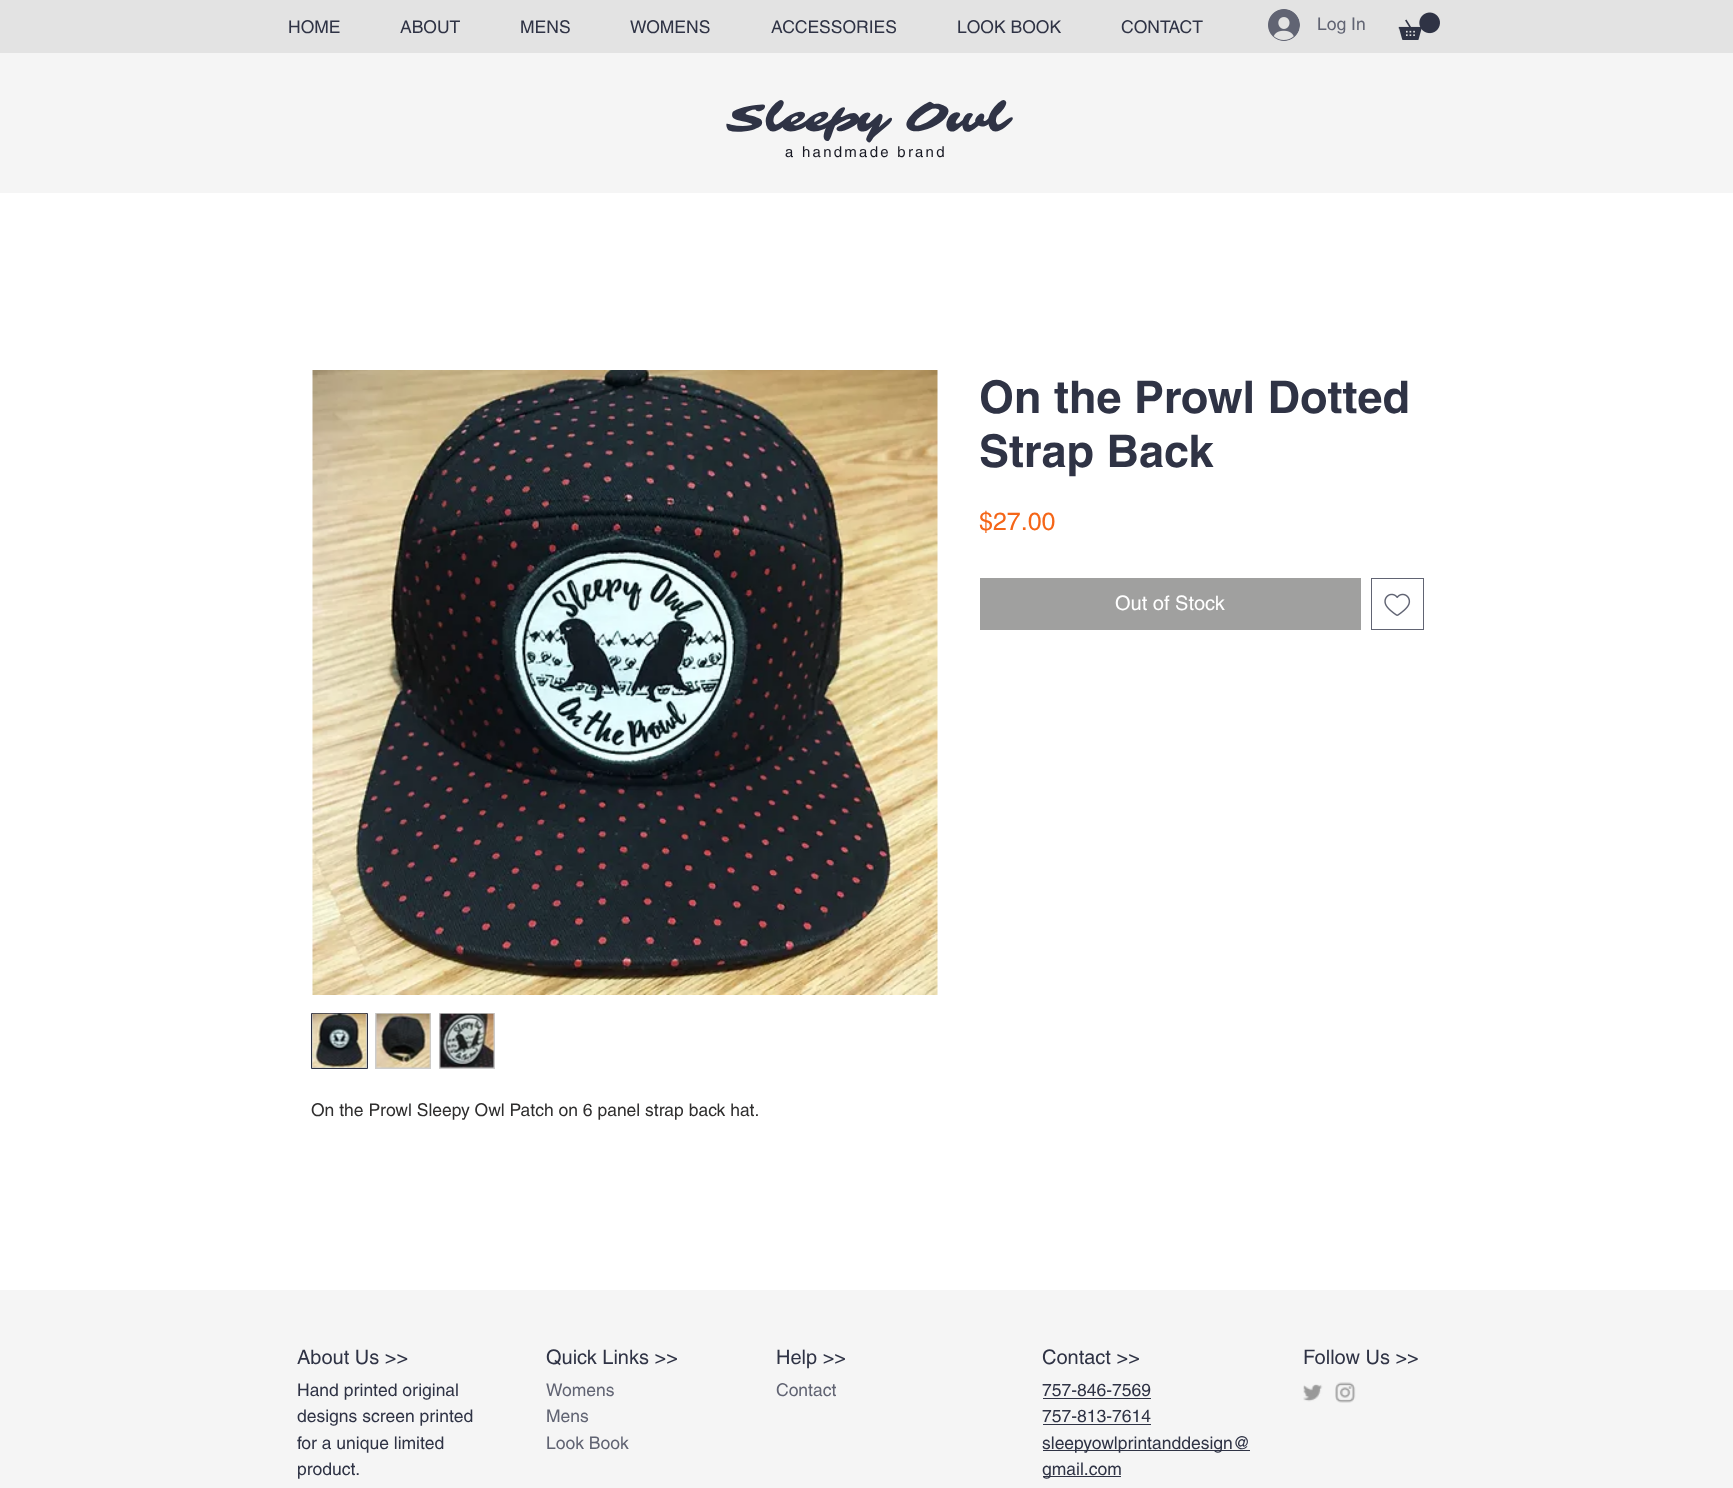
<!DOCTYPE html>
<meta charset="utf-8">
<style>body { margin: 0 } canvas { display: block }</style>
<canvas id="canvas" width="1733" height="1488"></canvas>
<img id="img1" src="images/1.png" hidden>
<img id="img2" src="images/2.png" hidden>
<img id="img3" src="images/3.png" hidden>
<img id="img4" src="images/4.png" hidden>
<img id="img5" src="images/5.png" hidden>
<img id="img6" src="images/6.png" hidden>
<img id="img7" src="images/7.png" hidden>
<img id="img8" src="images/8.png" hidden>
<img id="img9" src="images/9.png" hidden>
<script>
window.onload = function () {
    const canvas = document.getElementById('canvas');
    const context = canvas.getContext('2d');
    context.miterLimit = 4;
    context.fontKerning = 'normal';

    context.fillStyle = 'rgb(255, 255, 255)';
    context.fillRect(0, 0, 1733, 1488);
    context.fillStyle = 'rgb(227, 227, 227)';
    context.fillRect(0, 0, 1733, 53);
    context.drawImage(document.getElementById('img1'), 1268, 9, 32, 32);
    context.drawImage(document.getElementById('img2'), 1398, 12, 42, 28);
    context.fillStyle = 'rgb(245, 245, 245)';
    context.fillRect(0, 53, 1733, 140);
    context.fillStyle = 'rgb(160, 160, 159)';
    context.fillRect(980, 578, 381, 52);
    context.strokeStyle = 'rgb(97, 100, 115)';
    context.strokeRect(1371.5, 578.5, 52, 51);
    context.drawImage(document.getElementById('img3'), 1384, 593, 27, 23);
    context.drawImage(document.getElementById('img4'), 312, 370, 626, 625);
    context.fillStyle = 'rgb(204, 204, 204)';
    context.beginPath();
    context.rect(311.5, 1013.5, 56, 55);
    context.fill();
    context.strokeStyle = 'rgb(47, 51, 69)';
    context.stroke();
    context.drawImage(document.getElementById('img5'), 312, 1013, 55, 55);
    context.fillRect(375, 1013, 56, 56);
    context.drawImage(document.getElementById('img6'), 376, 1013, 55, 55);
    context.fillRect(439, 1013, 56, 56);
    context.drawImage(document.getElementById('img7'), 439, 1013, 56, 55);
    context.fillStyle = 'rgb(245, 245, 245)';
    context.fillRect(0, 1290, 1733, 198);
    context.fillStyle = 'rgb(47, 51, 69)';
    context.fillRect(1043, 1398, 108, 1);
    context.fillRect(1043, 1424, 108, 1);
    context.fillRect(1043, 1450, 207, 1);
    context.fillRect(1043, 1476, 78, 1);
    context.drawImage(document.getElementById('img8'), 1303, 1384, 20, 18);
    context.drawImage(document.getElementById('img9'), 1335, 1382, 21, 21);
    context.font = '17.5px helvetica';
    context.fillText('HOME', 288, 33);
    context.fillText('ABOUT', 400, 33);
    context.fillText('MENS', 520, 33);
    context.fillText('WOMENS', 630, 33);
    context.fillText('ACCESSORIES', 771, 33);
    context.fillText('LOOK BOOK', 957, 33);
    context.fillText('CONTACT', 1121, 33);
    context.fillStyle = 'rgb(97, 100, 115)';
    context.fillText('Log In', 1317, 30);
    context.font = '40px Sarina';
    context.fillStyle = 'rgb(47, 51, 69)';
    context.fillText('Sleepy Owl', 726, 131);
    context.letterSpacing = '2.25px';
    context.font = '15px helvetica';
    context.fillStyle = 'rgb(24, 25, 35)';
    context.fillText('a handmade brand', 785, 157);
    context.letterSpacing = '0px';
    context.font = 'bold 45px helvetica';
    context.fillStyle = 'rgb(47, 51, 69)';
    context.fillText('On the Prowl Dotted', 979, 413);
    context.fillText('Strap Back', 979, 467);
    context.font = '25px helvetica';
    context.fillStyle = 'rgb(245, 102, 24)';
    context.fillText('$27.00', 979, 530);
    context.font = '20px helvetica';
    context.fillStyle = 'rgb(255, 255, 255)';
    context.fillText('Out of Stock', 1115, 610);
    context.font = '17.5px helvetica';
    context.fillStyle = 'rgb(47, 46, 46)';
    context.fillText('On the Prowl Sleepy Owl Patch on 6 panel strap back hat.', 311, 1116);
    context.font = '20px helvetica';
    context.fillStyle = 'rgb(47, 51, 69)';
    context.fillText('About Us >>', 297, 1364);
    context.fillText('Quick Links >>', 546, 1364);
    context.fillText('Help >>', 776, 1364);
    context.fillText('Contact >>', 1042, 1364);
    context.fillText('Follow Us >>', 1303, 1364);
    context.font = '17.5px helvetica';
    context.fillText('Hand printed original', 297, 1396);
    context.fillText('designs screen printed', 297, 1422);
    context.fillText('for a unique limited', 297, 1449);
    context.fillText('product.', 297, 1475);
    context.fillStyle = 'rgb(97, 100, 115)';
    context.fillText('Womens', 546, 1396);
    context.fillText('Mens', 546, 1422);
    context.fillText('Look Book', 546, 1449);
    context.fillText('Contact', 776, 1396);
    context.fillStyle = 'rgb(47, 51, 69)';
    context.fillText('757-846-7569', 1042, 1396);
    context.fillText('757-813-7614', 1042, 1422);
    context.fillText('sleepyowlprintanddesign@', 1042, 1449);
    context.fillText('gmail.com', 1042, 1475);
};
</script>
